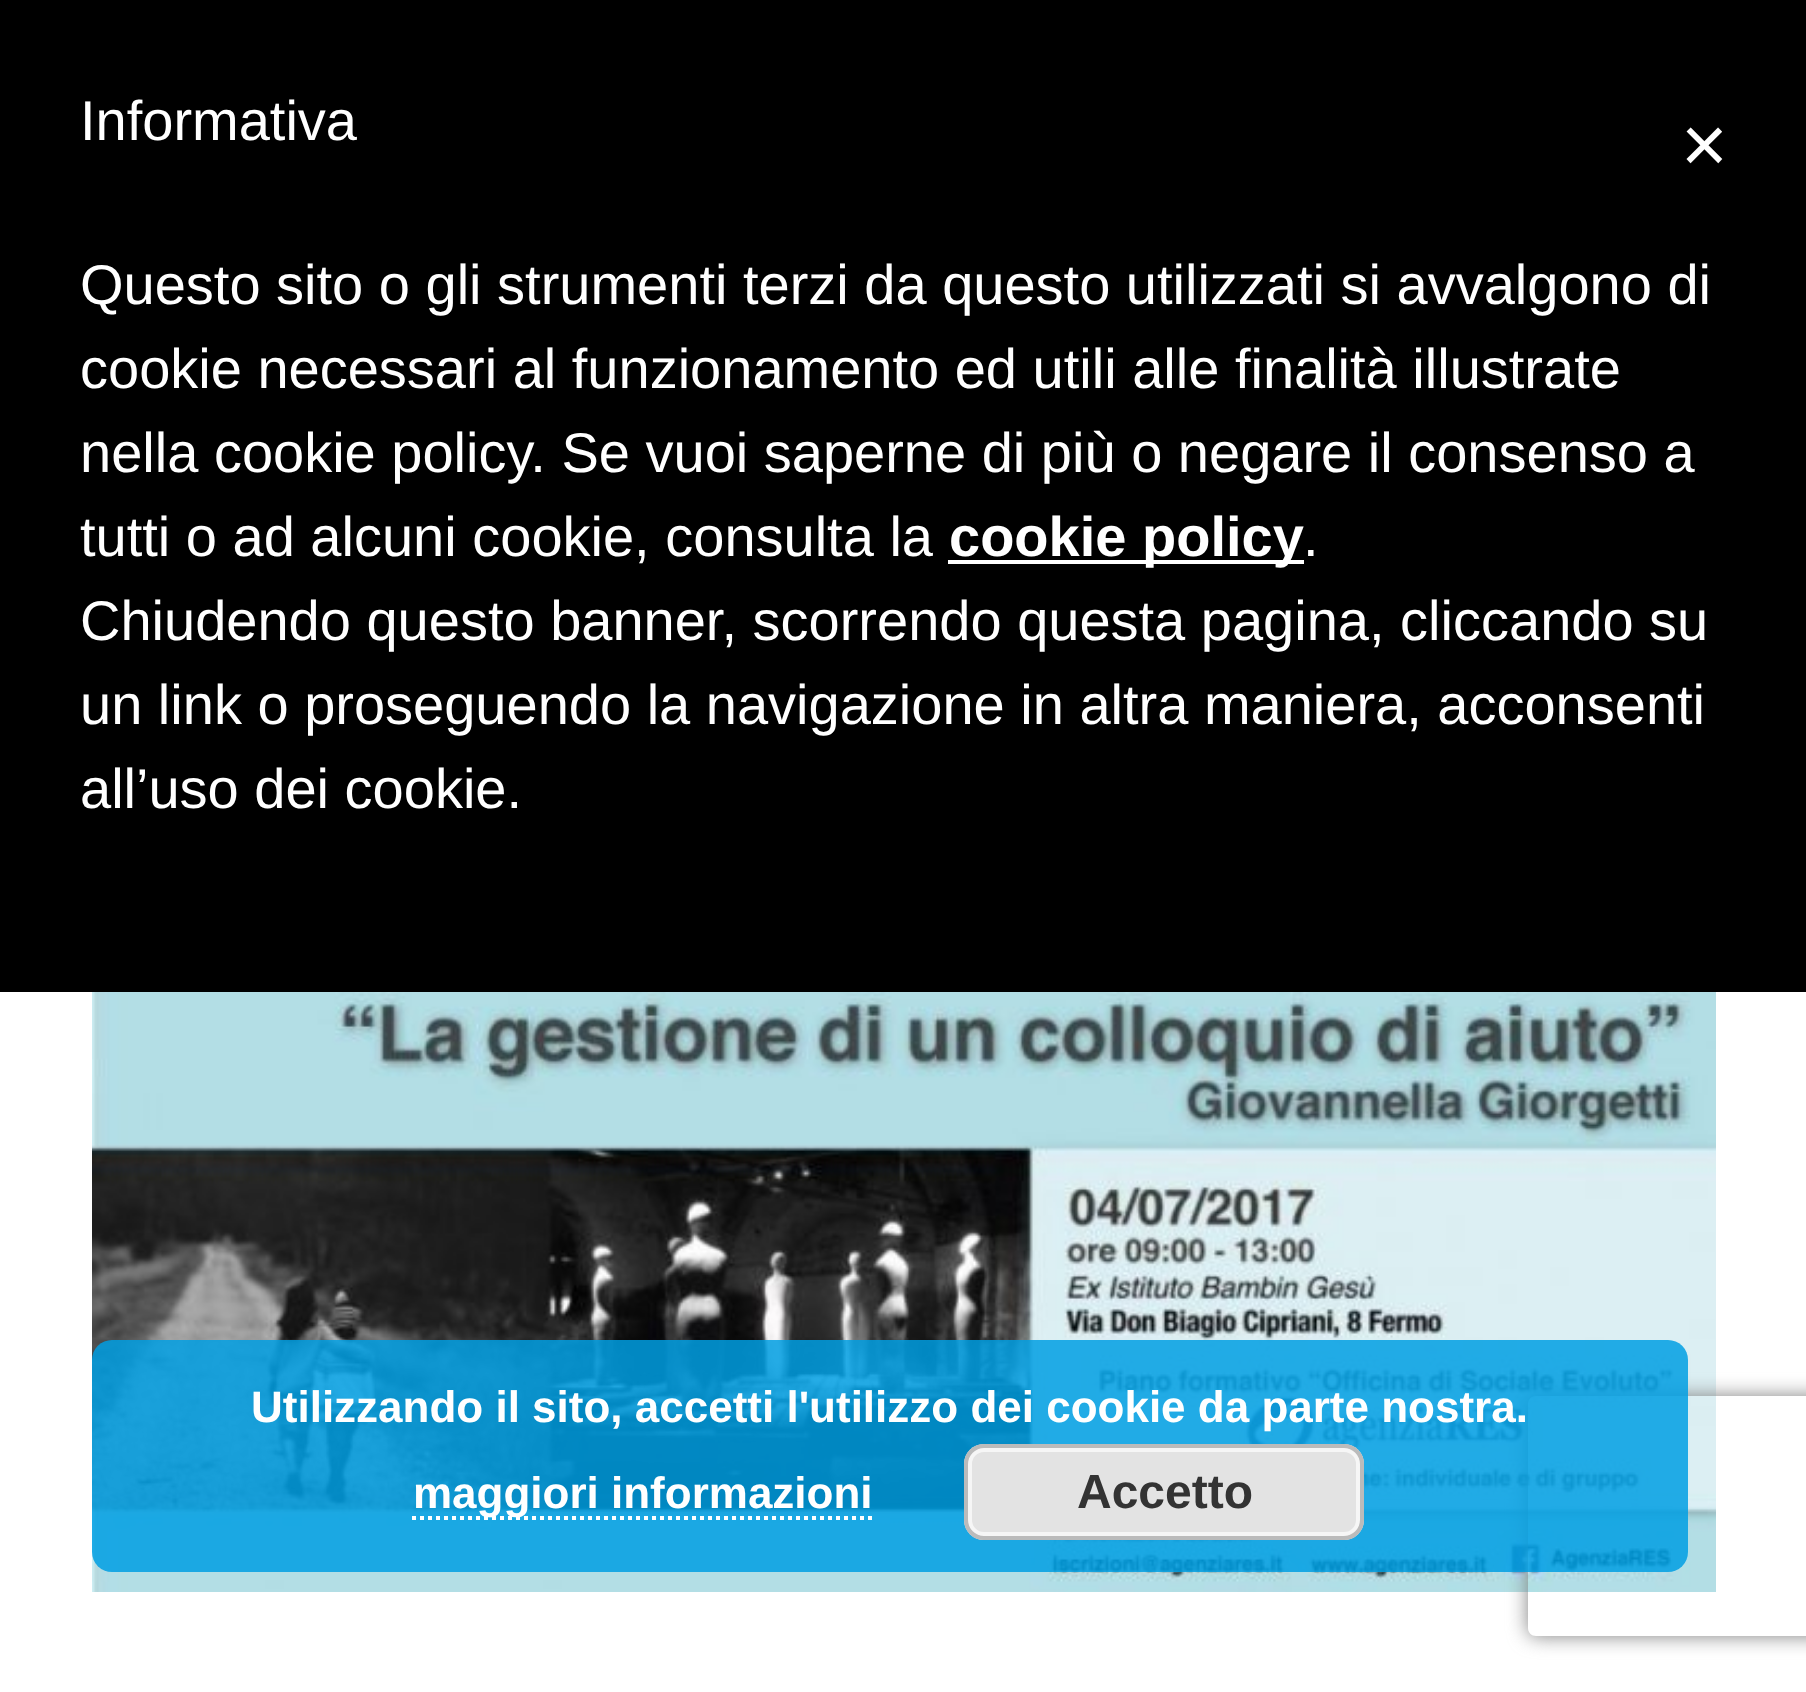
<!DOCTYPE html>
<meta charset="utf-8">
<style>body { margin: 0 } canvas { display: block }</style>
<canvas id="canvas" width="1806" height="1692"></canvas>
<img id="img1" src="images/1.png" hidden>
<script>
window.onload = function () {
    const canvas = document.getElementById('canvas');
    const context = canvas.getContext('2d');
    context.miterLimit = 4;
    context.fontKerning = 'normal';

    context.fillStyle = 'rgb(255, 255, 255)';
    context.fillRect(0, 0, 1806, 1692);
    context.fillStyle = 'rgb(0, 0, 0)';
    context.fillRect(0, 0, 1806, 992);
    context.fillStyle = 'rgb(255, 255, 255)';
    context.fillRect(948, 560, 356, 4);
    context.drawImage(document.getElementById('img1'), 92, 992, 1624, 600);
    context.save();
    context.beginPath();
    context.moveTo(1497, 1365);
    context.lineTo(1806, 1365);
    context.lineTo(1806, 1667);
    context.lineTo(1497, 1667);
    context.closePath();
    context.moveTo(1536, 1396);
    context.lineTo(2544, 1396);
    context.bezierCurveTo(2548.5, 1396, 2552, 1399.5, 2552, 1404);
    context.lineTo(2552, 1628);
    context.bezierCurveTo(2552, 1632.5, 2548.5, 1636, 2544, 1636);
    context.lineTo(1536, 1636);
    context.bezierCurveTo(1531.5, 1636, 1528, 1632.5, 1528, 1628);
    context.lineTo(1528, 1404);
    context.bezierCurveTo(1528, 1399.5, 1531.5, 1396, 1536, 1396);
    context.closePath();
    context.clip('evenodd');
    context.fillStyle = 'rgb(128, 128, 128)';
    context.filter = 'blur(10px)';
    context.beginPath();
    context.roundRect(1528, 1396, 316, 240, 8);
    context.fill();
    context.filter = 'none';
    context.restore();
    context.fillStyle = 'rgba(0, 159, 227, 0.85)';
    context.beginPath();
    context.roundRect(92, 1340, 1596, 232, 20);
    context.fill();
    context.beginPath();
    context.moveTo(412, 1518);
    context.lineTo(872, 1518);
    context.strokeStyle = 'rgb(255, 255, 255)';
    context.lineWidth = 4;
    context.setLineDash([4, 4]);
    context.stroke();
    context.fillStyle = 'rgb(227, 227, 227)';
    context.beginPath();
    context.roundRect(964, 1444, 400, 96, 20);
    context.fill();
    context.beginPath();
    context.roundRect(970, 1450, 388, 84, 14);
    context.strokeStyle = 'rgb(246, 246, 246)';
    context.setLineDash([]);
    context.stroke();
    context.beginPath();
    context.roundRect(966, 1446, 396, 92, 18);
    context.strokeStyle = 'rgb(187, 187, 187)';
    context.stroke();
    context.font = '56px Liberation Sans';
    context.fillStyle = 'rgb(255, 255, 255)';
    context.fillText('Informativa', 80, 140);
    context.fillText('Questo sito o gli strumenti terzi da questo utilizzati si avvalgono di', 80, 304);
    context.fillText('cookie necessari al funzionamento ed utili alle finalità illustrate', 80, 388);
    context.fillText('nella cookie policy. Se vuoi saperne di più o negare il consenso a', 80, 472);
    context.fillText('tutti o ad alcuni cookie, consulta la', 80, 556);
    context.font = 'bold 56px Liberation Sans';
    context.fillText('cookie policy', 949, 556);
    context.font = '56px Liberation Sans';
    context.fillText('.', 1303, 556);
    context.fillText('Chiudendo questo banner, scorrendo questa pagina, cliccando su', 80, 640);
    context.fillText('un link o proseguendo la navigazione in altra maniera, acconsenti', 80, 724);
    context.fillText('all’uso dei cookie.', 80, 808);
    context.font = '80px Liberation Sans';
    context.fillText('×', 1681, 172);
    context.font = 'bold 44px Liberation Sans';
    context.fillText('Utilizzando il sito, accetti l\'utilizzo dei cookie da parte nostra.', 251, 1422);
    context.fillText('maggiori informazioni', 413, 1508);
    context.font = 'bold 48px Liberation Sans';
    context.fillStyle = 'rgb(51, 51, 51)';
    context.fillText('Accetto', 1077, 1508);
};
</script>
